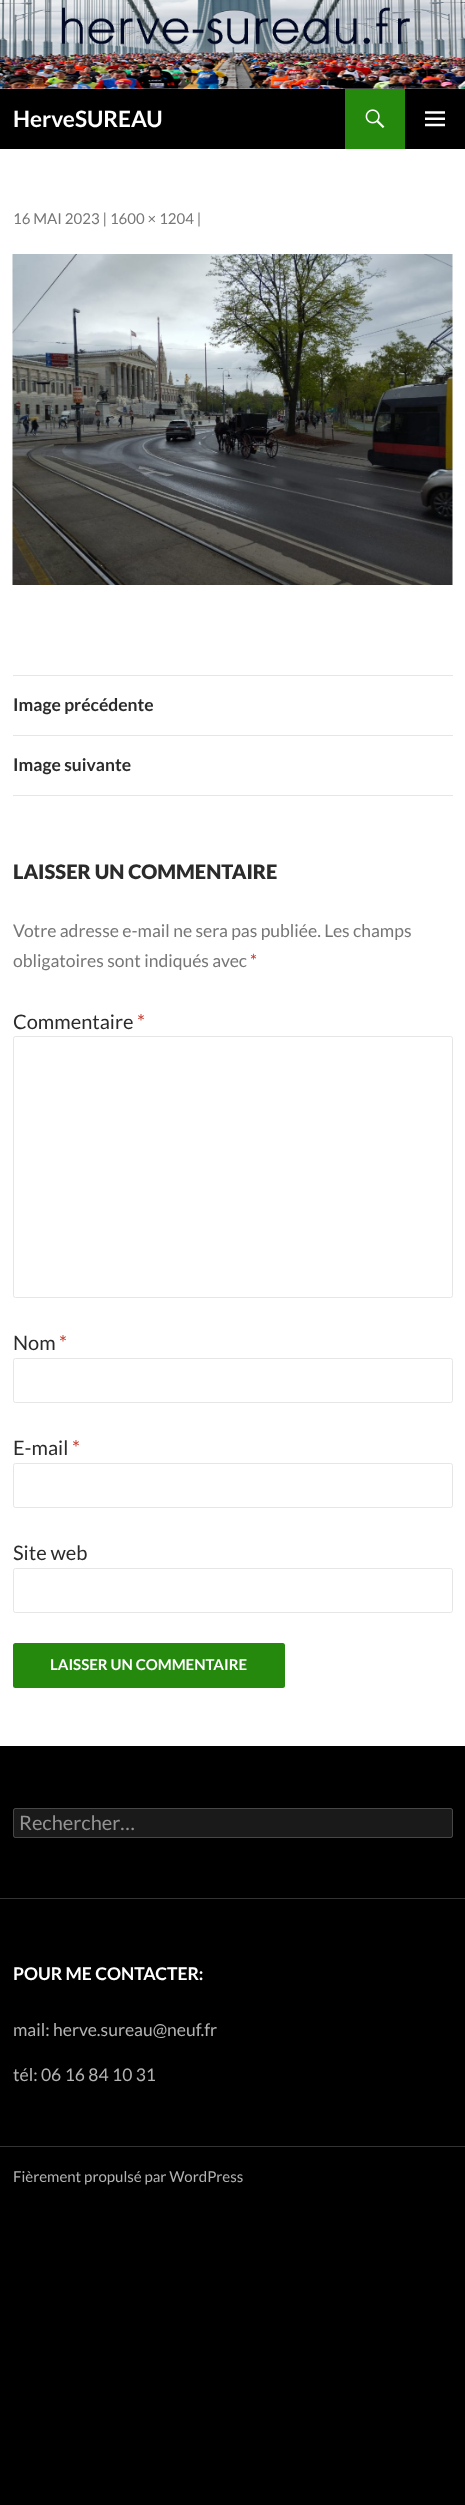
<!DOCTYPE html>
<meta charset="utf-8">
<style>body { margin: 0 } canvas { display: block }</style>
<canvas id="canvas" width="465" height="2505"></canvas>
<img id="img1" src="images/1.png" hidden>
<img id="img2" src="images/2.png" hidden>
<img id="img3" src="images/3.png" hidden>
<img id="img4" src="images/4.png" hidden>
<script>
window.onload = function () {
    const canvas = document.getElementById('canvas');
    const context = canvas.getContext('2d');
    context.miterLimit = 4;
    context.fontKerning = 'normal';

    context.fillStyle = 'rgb(0, 0, 0)';
    context.fillRect(0, 0, 465, 2505);
    context.fillStyle = 'rgb(255, 255, 255)';
    context.fillRect(0, 88, 465, 1658);
    context.drawImage(document.getElementById('img1'), 0, 0, 465, 89);
    context.fillStyle = 'rgb(0, 0, 0)';
    context.fillRect(0, 89, 465, 60);
    context.fillStyle = 'rgb(36, 137, 13)';
    context.fillRect(345, 89, 60, 60);
    context.drawImage(document.getElementById('img2'), 365, 109, 20, 19);
    context.drawImage(document.getElementById('img3'), 425, 111, 20, 16);
    context.drawImage(document.getElementById('img4'), 12, 254, 441, 331);
    context.fillStyle = 'rgb(230, 230, 230)';
    context.fillRect(13, 675, 440, 1);
    context.fillRect(13, 735, 440, 1);
    context.fillRect(13, 795, 440, 1);
    context.beginPath();
    context.roundRect(13.5, 1036.5, 439, 261, 2);
    context.strokeStyle = 'rgb(230, 230, 230)';
    context.stroke();
    context.beginPath();
    context.roundRect(13.5, 1358.5, 439, 44, 2);
    context.stroke();
    context.beginPath();
    context.roundRect(13.5, 1463.5, 439, 44, 2);
    context.stroke();
    context.beginPath();
    context.roundRect(13.5, 1568.5, 439, 44, 2);
    context.stroke();
    context.fillStyle = 'rgb(36, 137, 13)';
    context.beginPath();
    context.roundRect(13, 1643, 272, 45, 2.5);
    context.fill();
    context.fillStyle = 'rgb(51, 51, 51)';
    context.fillRect(0, 1898, 465, 1);
    context.fillStyle = 'rgb(26, 26, 26)';
    context.beginPath();
    context.roundRect(13, 1808, 440, 30, 2.5);
    context.fill();
    context.beginPath();
    context.roundRect(13.5, 1808.5, 439, 29, 2);
    context.strokeStyle = 'rgba(255, 255, 255, 0.2)';
    context.stroke();
    context.fillStyle = 'rgb(51, 51, 51)';
    context.fillRect(0, 2146, 465, 1);
    context.font = 'bold 22.5px Lato';
    context.fillStyle = 'rgb(255, 255, 255)';
    context.fillText('HerveSUREAU', 13, 127);
    context.font = '15px Lato';
    context.fillStyle = 'rgb(118, 118, 118)';
    context.fillText('16 MAI 2023 | 1600 × 1204 |', 13, 224);
    context.font = 'bold 17.5px Lato';
    context.fillStyle = 'rgb(43, 43, 43)';
    context.fillText('Image précédente', 13, 711);
    context.fillText('Image suivante', 13, 771);
    context.font = '900 20px Lato';
    context.fillText('LAISSER UN COMMENTAIRE', 13, 879);
    context.font = '17.5px Lato';
    context.fillStyle = 'rgb(118, 118, 118)';
    context.fillText('Votre adresse e-mail ne sera pas publiée. Les champs', 13, 937);
    context.fillText('obligatoires sont indiqués avec', 13, 967);
    context.fillStyle = 'rgb(192, 57, 43)';
    context.fillText('*', 250, 967);
    context.font = '20px Lato';
    context.fillStyle = 'rgb(43, 43, 43)';
    context.fillText('Commentaire', 13, 1029);
    context.fillStyle = 'rgb(192, 57, 43)';
    context.fillText('*', 137, 1029);
    context.fillStyle = 'rgb(43, 43, 43)';
    context.fillText('Nom', 13, 1350);
    context.fillStyle = 'rgb(192, 57, 43)';
    context.fillText('*', 59, 1350);
    context.fillStyle = 'rgb(43, 43, 43)';
    context.fillText('E-mail', 13, 1455);
    context.fillStyle = 'rgb(192, 57, 43)';
    context.fillText('*', 72, 1455);
    context.fillStyle = 'rgb(43, 43, 43)';
    context.fillText('Site web', 13, 1560);
    context.font = 'bold 15px Lato';
    context.fillStyle = 'rgb(255, 255, 255)';
    context.fillText('LAISSER UN COMMENTAIRE', 50, 1670);
    context.font = '20px Lato';
    context.fillStyle = 'rgb(147, 147, 147)';
    context.fillText('Rechercher…', 19, 1830);
    context.font = 'bold 17.5px Lato';
    context.fillStyle = 'rgb(255, 255, 255)';
    context.fillText('POUR ME CONTACTER:', 13, 1980);
    context.font = '17.5px Lato';
    context.fillStyle = 'rgb(179, 179, 179)';
    context.fillText('mail: herve.sureau@neuf.fr', 13, 2036);
    context.fillText('tél: 06 16 84 10 31', 13, 2081);
    context.font = '15px Lato';
    context.fillText('Fièrement propulsé par WordPress', 13, 2182);
};
</script>
